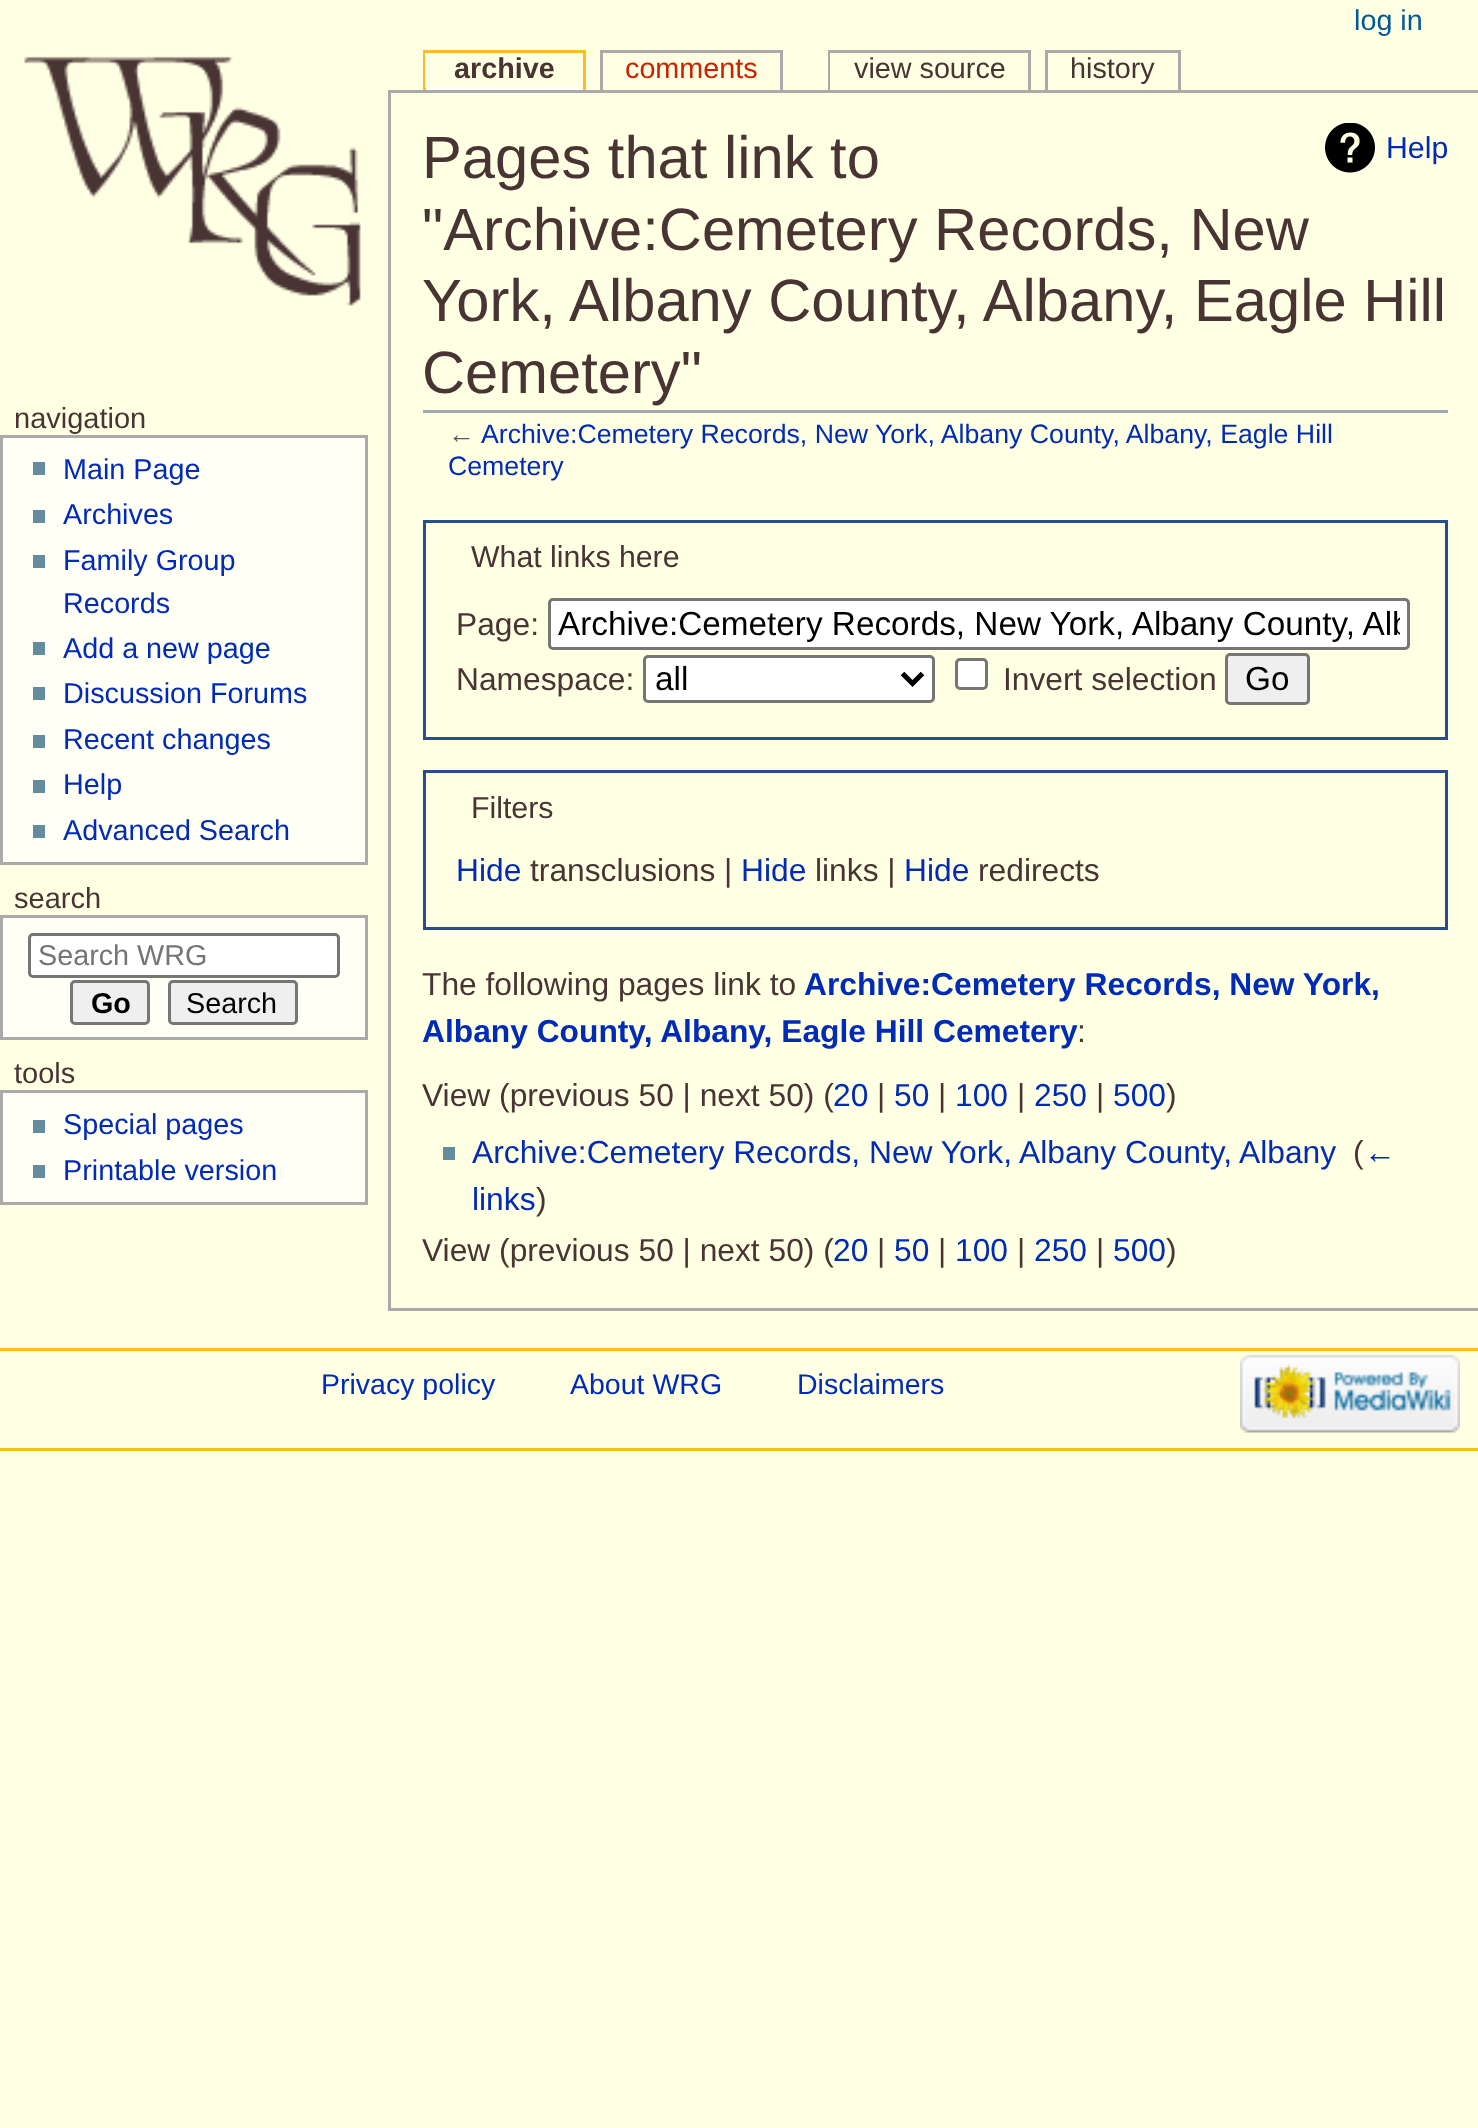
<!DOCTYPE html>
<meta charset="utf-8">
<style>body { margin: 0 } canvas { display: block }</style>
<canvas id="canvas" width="1478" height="2128"></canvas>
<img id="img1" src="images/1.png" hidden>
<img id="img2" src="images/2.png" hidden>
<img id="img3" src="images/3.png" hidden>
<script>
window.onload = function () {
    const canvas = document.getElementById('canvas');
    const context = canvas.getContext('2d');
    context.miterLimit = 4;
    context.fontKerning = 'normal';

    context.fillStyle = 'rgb(255, 255, 228)';
    context.fillRect(0, 0, 1478, 2128);
    context.drawImage(document.getElementById('img1'), 24, 56, 337, 250);
    context.fillStyle = 'rgb(255, 255, 255)';
    context.fillRect(426, 88, 157, 2);
    context.fillStyle = 'rgb(250, 189, 35)';
    context.fillRect(423, 50, 162, 3);
    context.fillRect(583, 50, 3, 40);
    context.fillRect(423, 50, 3, 40);
    context.fillStyle = 'rgb(255, 255, 228)';
    context.fillRect(425, 53, 1, 35);
    context.fillStyle = 'rgb(170, 170, 170)';
    context.fillRect(600, 50, 183, 3);
    context.fillRect(780, 50, 3, 40);
    context.fillRect(600, 50, 3, 40);
    context.fillRect(828, 50, 202, 3);
    context.fillRect(1028, 50, 3, 40);
    context.fillRect(828, 50, 3, 40);
    context.fillStyle = 'rgb(255, 255, 228)';
    context.fillRect(830, 53, 1, 37);
    context.fillStyle = 'rgb(170, 170, 170)';
    context.fillRect(1045, 50, 135, 3);
    context.fillRect(1178, 50, 3, 40);
    context.fillRect(1045, 50, 3, 40);
    context.fillStyle = 'rgb(255, 255, 246)';
    context.beginPath();
    context.rect(1.5, 436.5, 365, 427);
    context.fill();
    context.strokeStyle = 'rgb(170, 170, 170)';
    context.lineWidth = 3;
    context.stroke();
    context.fillStyle = 'rgb(99, 140, 156)';
    context.fillRect(33, 462, 12, 13);
    context.fillRect(33, 510, 12, 13);
    context.fillRect(33, 555, 12, 13);
    context.fillRect(33, 642, 12, 13);
    context.fillRect(33, 687, 12, 13);
    context.fillRect(33, 735, 12, 13);
    context.fillRect(33, 780, 12, 13);
    context.fillRect(33, 825, 12, 13);
    context.fillStyle = 'rgb(255, 255, 246)';
    context.beginPath();
    context.rect(1.5, 916.5, 365, 122);
    context.fill();
    context.stroke();
    context.fillStyle = 'rgb(255, 255, 255)';
    context.beginPath();
    context.roundRect(29.5, 934.5, 309, 42, 3.5);
    context.fill();
    context.strokeStyle = 'rgb(118, 118, 118)';
    context.stroke();
    context.fillStyle = 'rgb(239, 239, 239)';
    context.beginPath();
    context.roundRect(71.5, 981.5, 77, 42, 3.5);
    context.fill();
    context.stroke();
    context.beginPath();
    context.roundRect(169.5, 981.5, 127, 42, 3.5);
    context.fill();
    context.stroke();
    context.fillStyle = 'rgb(255, 255, 246)';
    context.beginPath();
    context.rect(1.5, 1091.5, 365, 112);
    context.fill();
    context.strokeStyle = 'rgb(170, 170, 170)';
    context.stroke();
    context.fillStyle = 'rgb(99, 140, 156)';
    context.fillRect(33, 1120, 12, 13);
    context.fillRect(33, 1165, 12, 13);
    context.fillStyle = 'rgb(170, 170, 170)';
    context.fillRect(388, 90, 1090, 3);
    context.fillRect(388, 1308, 1090, 3);
    context.fillRect(388, 90, 3, 1220);
    context.fillStyle = 'rgb(162, 169, 177)';
    context.fillRect(423, 410, 1025, 3);
    context.drawImage(document.getElementById('img2'), 1325, 123, 50, 50);
    context.strokeStyle = 'rgb(42, 75, 141)';
    context.strokeRect(424.5, 521.5, 1022, 217);
    context.fillStyle = 'rgb(255, 255, 255)';
    context.beginPath();
    context.roundRect(549.5, 599.5, 859, 49, 3.5);
    context.fill();
    context.strokeStyle = 'rgb(118, 118, 118)';
    context.stroke();
    context.beginPath();
    context.roundRect(644.5, 656.5, 289, 45, 3.5);
    context.fill();
    context.stroke();
    context.beginPath();
    context.moveTo(902.5, 673.5);
    context.lineTo(912.5, 683.5);
    context.lineTo(922.5, 673.5);
    context.strokeStyle = 'rgb(0, 0, 0)';
    context.lineWidth = 5;
    context.stroke();
    context.beginPath();
    context.roundRect(956.5, 659.5, 30, 29, 3.5);
    context.fill();
    context.strokeStyle = 'rgb(118, 118, 118)';
    context.lineWidth = 3;
    context.stroke();
    context.fillStyle = 'rgb(239, 239, 239)';
    context.beginPath();
    context.roundRect(1226.5, 654.5, 82, 49, 3.5);
    context.fill();
    context.stroke();
    context.strokeStyle = 'rgb(42, 75, 141)';
    context.strokeRect(424.5, 771.5, 1022, 157);
    context.fillStyle = 'rgb(99, 140, 156)';
    context.fillRect(443, 1147, 12, 13);
    context.fillStyle = 'rgb(250, 189, 35)';
    context.fillRect(0, 1348, 1478, 3);
    context.fillRect(0, 1448, 1478, 3);
    context.drawImage(document.getElementById('img3'), 1240, 1355, 220, 78);
    context.font = '28.75px Liberation Sans';
    context.fillStyle = 'rgb(0, 88, 150)';
    context.fillText('log in', 1354, 30);
    context.font = 'bold 28.75px Liberation Sans';
    context.fillStyle = 'rgb(73, 52, 52)';
    context.fillText('archive', 454, 78);
    context.font = '28.75px Liberation Sans';
    context.fillStyle = 'rgb(204, 34, 0)';
    context.fillText('comments', 625, 78);
    context.fillStyle = 'rgb(73, 52, 52)';
    context.fillText('view source', 854, 78);
    context.fillText('history', 1070, 78);
    context.font = '29px Liberation Sans';
    context.fillText('navigation', 14, 428);
    context.font = '28.75px Liberation Sans';
    context.fillStyle = 'rgb(0, 43, 184)';
    context.fillText('Main Page', 63, 479);
    context.fillText('Archives', 63, 524);
    context.fillText('Family Group', 63, 570);
    context.fillText('Records', 63, 613);
    context.fillText('Add a new page', 63, 658);
    context.fillText('Discussion Forums', 63, 703);
    context.fillText('Recent changes', 63, 749);
    context.fillText('Help', 63, 794);
    context.fillText('Advanced Search', 63, 840);
    context.font = '29px Liberation Sans';
    context.fillStyle = 'rgb(73, 52, 52)';
    context.fillText('search', 14, 908);
    context.font = '28.75px Liberation Sans';
    context.fillStyle = 'rgb(117, 117, 117)';
    context.fillText('Search WRG', 38, 965);
    context.font = 'bold 28.75px Liberation Sans';
    context.fillStyle = 'rgb(0, 0, 0)';
    context.fillText('Go', 91, 1013);
    context.font = '28.75px Liberation Sans';
    context.fillText('Search', 186, 1013);
    context.font = '29px Liberation Sans';
    context.fillStyle = 'rgb(73, 52, 52)';
    context.fillText('tools', 14, 1083);
    context.font = '28.75px Liberation Sans';
    context.fillStyle = 'rgb(0, 43, 184)';
    context.fillText('Special pages', 63, 1134);
    context.fillText('Printable version', 63, 1180);
    context.font = '59.7px Liberation Sans';
    context.fillStyle = 'rgb(73, 52, 52)';
    context.fillText('Pages that link to', 422, 178);
    context.fillText('"Archive:Cemetery Records, New', 422, 250);
    context.fillText('York, Albany County, Albany, Eagle Hill', 422, 321);
    context.fillText('Cemetery"', 422, 393);
    context.font = '30.25px Liberation Sans';
    context.fillStyle = 'rgb(0, 43, 184)';
    context.fillText('Help', 1386, 158);
    context.font = '26.7px Liberation Sans';
    context.fillStyle = 'rgb(84, 89, 93)';
    context.fillText('←', 448, 443);
    context.fillStyle = 'rgb(0, 43, 184)';
    context.fillText('Archive:Cemetery Records, New York, Albany County, Albany, Eagle Hill', 481, 443);
    context.fillText('Cemetery', 448, 475);
    context.font = '30.25px Liberation Sans';
    context.fillStyle = 'rgb(73, 52, 52)';
    context.fillText('What links here', 471, 567);
    context.font = '31.75px Liberation Sans';
    context.fillText('Page:', 456, 635);
    context.save();
    context.beginPath();
    context.rect(558, 605, 842, 38);
    context.clip();
    context.font = '33.3px Liberation Sans';
    context.fillStyle = 'rgb(0, 0, 0)';
    context.fillText('Archive:Cemetery Records, New York, Albany County, Alb', 558, 635);
    context.restore();
    context.fillText('Namespace:', 456, 690);
    context.font = '33.3px Liberation Sans';
    context.fillStyle = 'rgb(0, 0, 0)';
    context.fillText('all', 655, 690);
    context.font = '31.75px Liberation Sans';
    context.fillStyle = 'rgb(73, 52, 52)';
    context.fillText('Invert selection', 1003, 690);
    context.font = '33.3px Liberation Sans';
    context.fillStyle = 'rgb(0, 0, 0)';
    context.fillText('Go', 1245, 690);
    context.font = '30.25px Liberation Sans';
    context.fillStyle = 'rgb(73, 52, 52)';
    context.fillText('Filters', 471, 818);
    context.font = '31.75px Liberation Sans';
    context.fillStyle = 'rgb(0, 43, 184)';
    context.fillText('Hide', 456, 881);
    context.fillStyle = 'rgb(73, 52, 52)';
    context.fillText('transclusions |', 530, 881);
    context.fillStyle = 'rgb(0, 43, 184)';
    context.fillText('Hide', 741, 881);
    context.fillStyle = 'rgb(73, 52, 52)';
    context.fillText('links |', 815, 881);
    context.fillStyle = 'rgb(0, 43, 184)';
    context.fillText('Hide', 904, 881);
    context.fillStyle = 'rgb(73, 52, 52)';
    context.fillText('redirects', 978, 881);
    context.fillText('The following pages link to', 422, 995);
    context.font = 'bold 31.75px Liberation Sans';
    context.fillStyle = 'rgb(0, 43, 184)';
    context.fillText('Archive:Cemetery Records, New York,', 804, 995);
    context.fillText('Albany County, Albany, Eagle Hill Cemetery', 422, 1042);
    context.font = '31.75px Liberation Sans';
    context.fillStyle = 'rgb(73, 52, 52)';
    context.fillText(':', 1077, 1042);
    context.fillText('View (previous 50 | next 50) (', 422, 1106);
    context.fillStyle = 'rgb(0, 43, 184)';
    context.fillText('20', 833, 1106);
    context.fillStyle = 'rgb(73, 52, 52)';
    context.fillText('|', 877, 1106);
    context.fillStyle = 'rgb(0, 43, 184)';
    context.fillText('50', 894, 1106);
    context.fillStyle = 'rgb(73, 52, 52)';
    context.fillText('|', 938, 1106);
    context.fillStyle = 'rgb(0, 43, 184)';
    context.fillText('100', 955, 1106);
    context.fillStyle = 'rgb(73, 52, 52)';
    context.fillText('|', 1017, 1106);
    context.fillStyle = 'rgb(0, 43, 184)';
    context.fillText('250', 1034, 1106);
    context.fillStyle = 'rgb(73, 52, 52)';
    context.fillText('|', 1096, 1106);
    context.fillStyle = 'rgb(0, 43, 184)';
    context.fillText('500', 1113, 1106);
    context.fillStyle = 'rgb(73, 52, 52)';
    context.fillText(')', 1166, 1106);
    context.fillStyle = 'rgb(0, 43, 184)';
    context.fillText('Archive:Cemetery Records, New York, Albany County, Albany', 472, 1163);
    context.fillStyle = 'rgb(73, 52, 52)';
    context.fillText('(', 1353, 1163);
    context.fillStyle = 'rgb(0, 43, 184)';
    context.fillText('←', 1364, 1163);
    context.fillText('links', 472, 1210);
    context.fillStyle = 'rgb(73, 52, 52)';
    context.fillText(')', 536, 1210);
    context.fillText('View (previous 50 | next 50) (', 422, 1261);
    context.fillStyle = 'rgb(0, 43, 184)';
    context.fillText('20', 833, 1261);
    context.fillStyle = 'rgb(73, 52, 52)';
    context.fillText('|', 877, 1261);
    context.fillStyle = 'rgb(0, 43, 184)';
    context.fillText('50', 894, 1261);
    context.fillStyle = 'rgb(73, 52, 52)';
    context.fillText('|', 938, 1261);
    context.fillStyle = 'rgb(0, 43, 184)';
    context.fillText('100', 955, 1261);
    context.fillStyle = 'rgb(73, 52, 52)';
    context.fillText('|', 1017, 1261);
    context.fillStyle = 'rgb(0, 43, 184)';
    context.fillText('250', 1034, 1261);
    context.fillStyle = 'rgb(73, 52, 52)';
    context.fillText('|', 1096, 1261);
    context.fillStyle = 'rgb(0, 43, 184)';
    context.fillText('500', 1113, 1261);
    context.fillStyle = 'rgb(73, 52, 52)';
    context.fillText(')', 1166, 1261);
    context.font = '28.5px Liberation Sans';
    context.fillStyle = 'rgb(0, 43, 184)';
    context.fillText('Privacy policy', 321, 1394);
    context.fillText('About WRG', 570, 1394);
    context.fillText('Disclaimers', 797, 1394);
};
</script>
